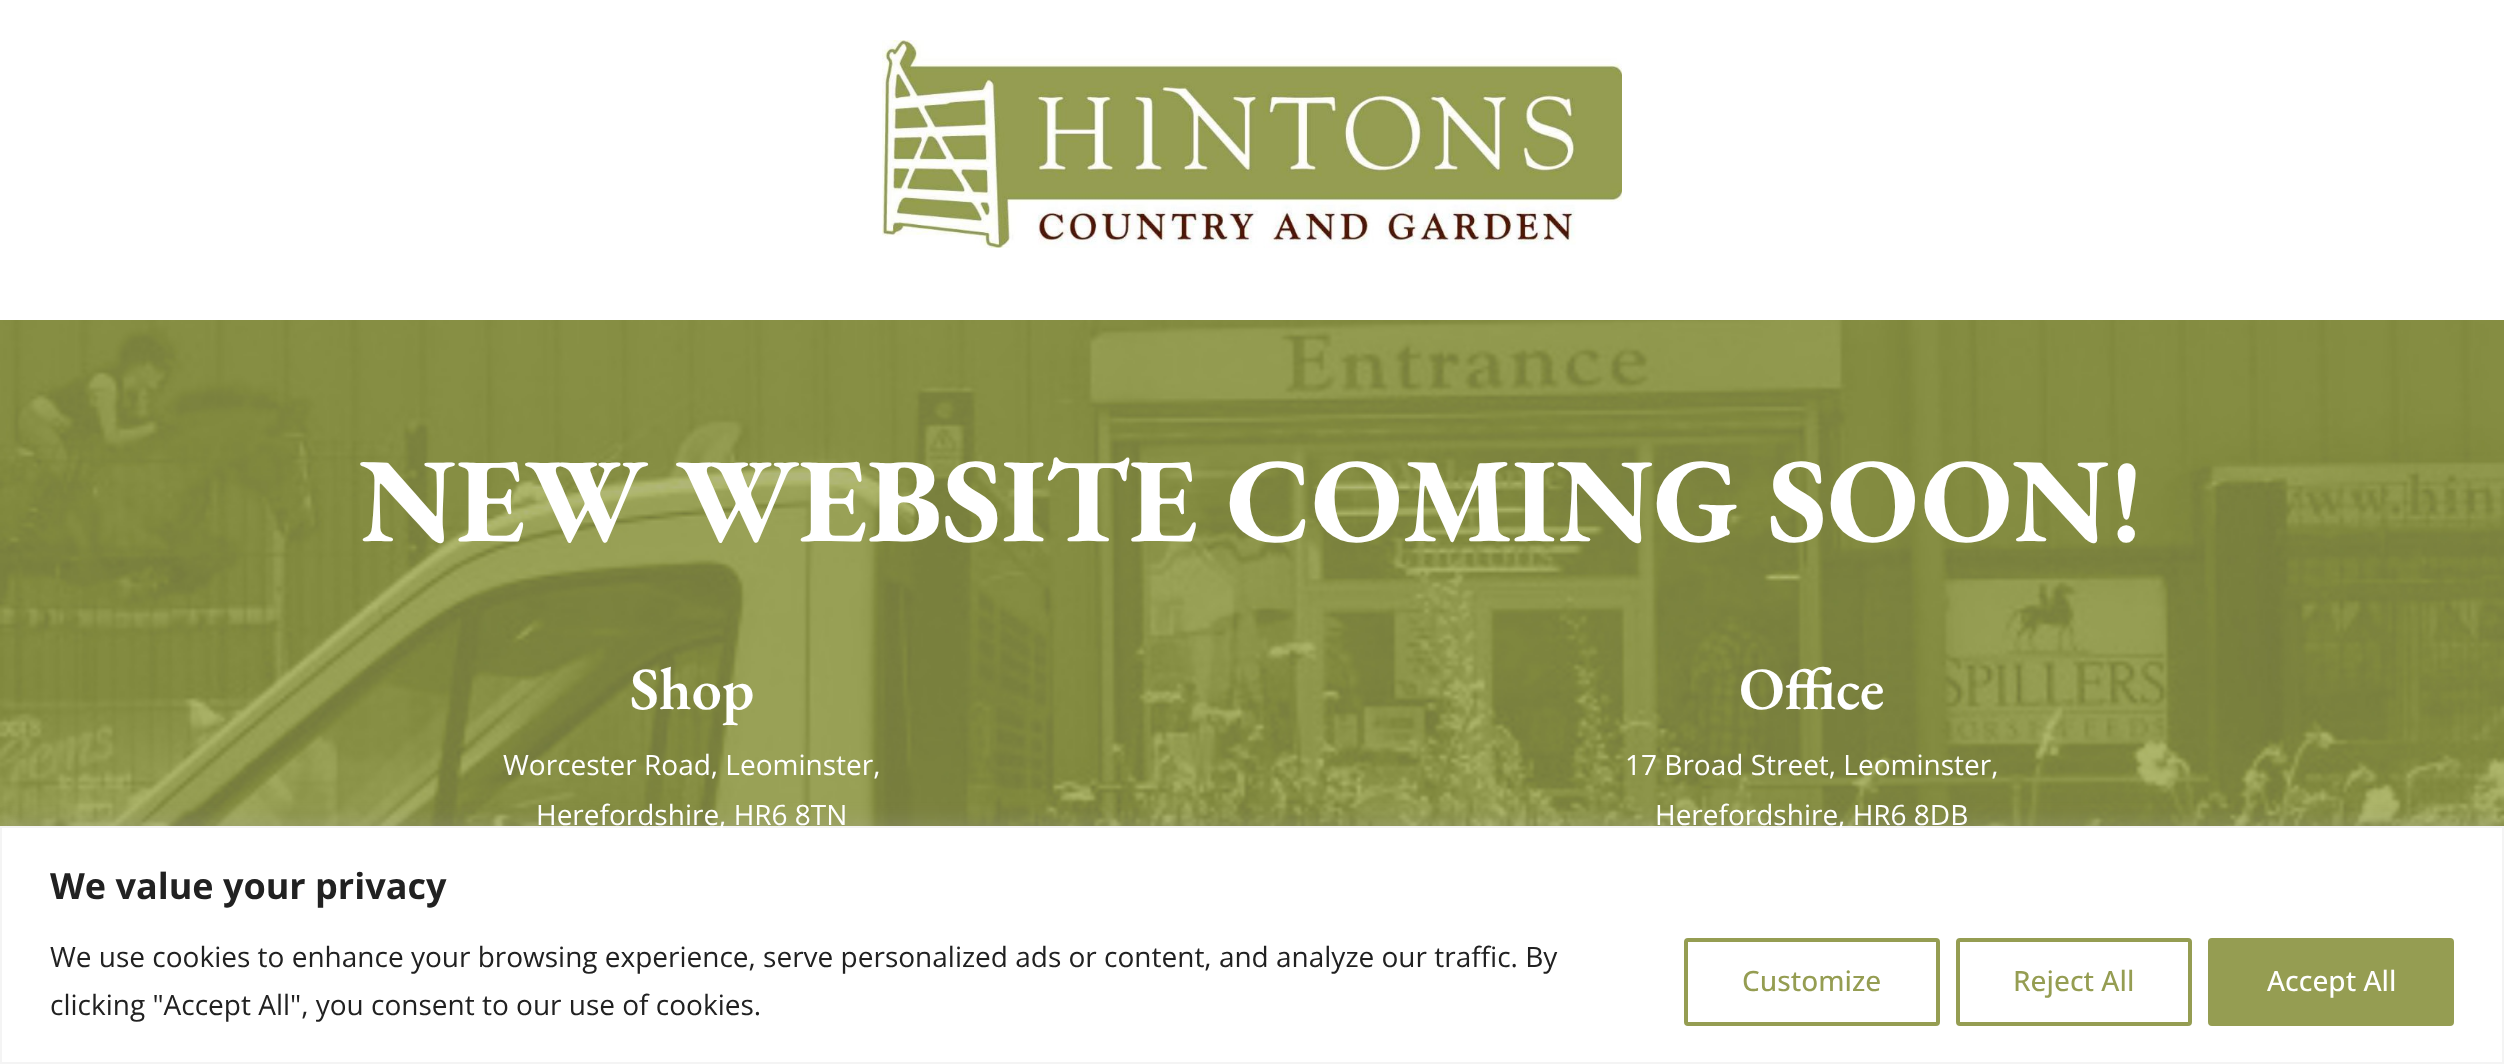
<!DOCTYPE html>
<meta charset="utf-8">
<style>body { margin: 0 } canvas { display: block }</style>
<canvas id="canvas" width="2504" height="1064"></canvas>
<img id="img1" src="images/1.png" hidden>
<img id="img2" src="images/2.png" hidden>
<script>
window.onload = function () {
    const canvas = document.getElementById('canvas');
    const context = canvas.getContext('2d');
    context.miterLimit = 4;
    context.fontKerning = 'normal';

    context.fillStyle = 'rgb(255, 255, 255)';
    context.fillRect(0, 0, 2504, 1064);
    context.drawImage(document.getElementById('img1'), 882, 40, 740, 208);
    context.drawImage(document.getElementById('img2'), 0, 320, 2504, 506);
    context.fillStyle = 'rgba(172, 171, 171, 0.3)';
    context.filter = 'blur(10px)';
    context.beginPath();
    context.rect(0, 824, 2504, 238);
    context.fill();
    context.filter = 'none';
    context.fillStyle = 'rgb(255, 255, 255)';
    context.beginPath();
    context.rect(1, 827, 2502, 236);
    context.fill();
    context.strokeStyle = 'rgb(244, 244, 244)';
    context.lineWidth = 2;
    context.stroke();
    context.beginPath();
    context.roundRect(1686, 940, 252, 84, 2);
    context.strokeStyle = 'rgb(149, 157, 82)';
    context.lineWidth = 4;
    context.stroke();
    context.beginPath();
    context.roundRect(1958, 940, 232, 84, 2);
    context.stroke();
    context.fillStyle = 'rgb(149, 157, 82)';
    context.beginPath();
    context.roundRect(2210, 940, 242, 84, 2);
    context.fill();
    context.stroke();
    context.font = 'bold 120px EB Garamond';
    context.fillStyle = 'rgb(255, 255, 255)';
    context.fillText('NEW WEBSITE COMING SOON!', 359, 541);
    context.font = '600 60px EB Garamond';
    context.fillText('Shop', 630, 709);
    context.font = '28px Open Sans';
    context.fillText('Worcester Road, Leominster,', 503, 775);
    context.fillText('Herefordshire, HR6 8TN', 536, 825);
    context.font = '600 60px EB Garamond';
    context.fillText('Office', 1739, 709);
    context.font = '28px Open Sans';
    context.fillText('17 Broad Street, Leominster,', 1625, 775);
    context.fillText('Herefordshire, HR6 8DB', 1655, 825);
    context.font = 'bold 36px Open Sans';
    context.fillStyle = 'rgb(33, 33, 33)';
    context.fillText('We value your privacy', 50, 899);
    context.font = '28px Open Sans';
    context.fillText('We use cookies to enhance your browsing experience, serve personalized ads or content, and analyze our traffic. By', 50, 967);
    context.fillText('clicking "Accept All", you consent to our use of cookies.', 50, 1015);
    context.font = '500 28px Open Sans';
    context.fillStyle = 'rgb(149, 157, 82)';
    context.fillText('Customize', 1742, 991);
    context.fillText('Reject All', 2013, 991);
    context.fillStyle = 'rgb(255, 255, 255)';
    context.fillText('Accept All', 2267, 991);
};
</script>
